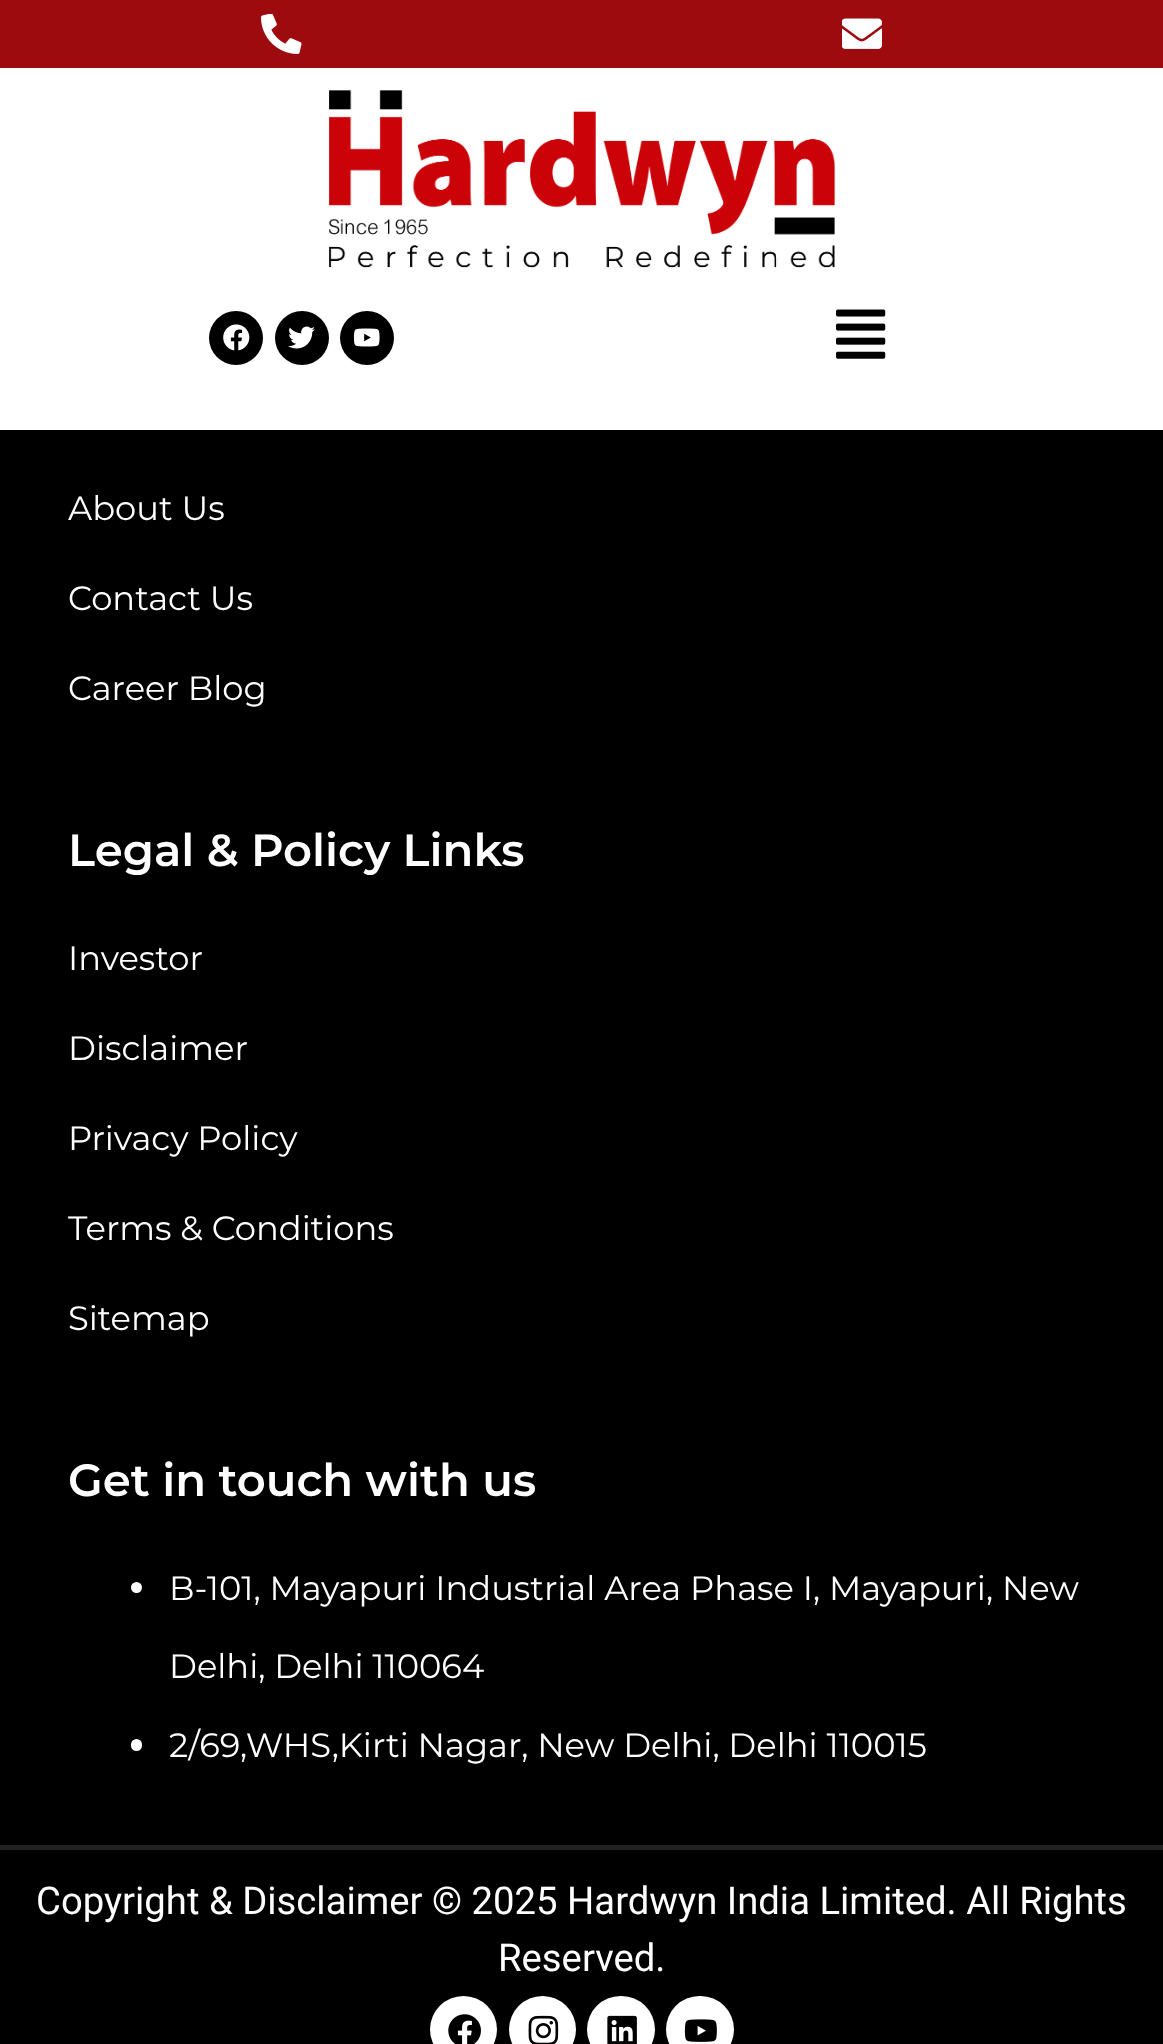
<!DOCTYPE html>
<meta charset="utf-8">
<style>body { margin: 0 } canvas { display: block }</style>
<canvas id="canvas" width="1163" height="2044"></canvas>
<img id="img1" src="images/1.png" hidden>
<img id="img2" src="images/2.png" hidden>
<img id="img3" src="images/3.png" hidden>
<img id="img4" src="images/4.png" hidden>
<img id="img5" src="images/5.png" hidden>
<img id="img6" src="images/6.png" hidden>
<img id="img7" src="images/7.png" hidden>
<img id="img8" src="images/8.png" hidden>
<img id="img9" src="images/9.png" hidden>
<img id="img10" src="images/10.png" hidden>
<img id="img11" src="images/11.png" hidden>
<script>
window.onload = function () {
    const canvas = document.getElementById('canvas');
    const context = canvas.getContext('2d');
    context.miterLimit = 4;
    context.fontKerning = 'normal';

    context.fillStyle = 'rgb(0, 0, 0)';
    context.fillRect(0, 0, 1163, 2044);
    context.fillStyle = 'rgb(158, 11, 15)';
    context.fillRect(0, 0, 1163, 68);
    context.drawImage(document.getElementById('img1'), 261, 14, 41, 40);
    context.drawImage(document.getElementById('img2'), 842, 18, 40, 31);
    context.fillStyle = 'rgb(255, 255, 255)';
    context.fillRect(0, 68, 1163, 362);
    context.drawImage(document.getElementById('img3'), 329, 90, 506, 178);
    context.fillStyle = 'rgb(0, 0, 0)';
    context.beginPath();
    context.arc(236, 338, 27, 0, 2 * Math.PI);
    context.fill();
    context.drawImage(document.getElementById('img4'), 223, 324, 27, 27);
    context.beginPath();
    context.arc(302, 338, 27, 0, 2 * Math.PI);
    context.fill();
    context.drawImage(document.getElementById('img5'), 288, 326, 27, 23);
    context.beginPath();
    context.arc(367, 338, 27, 0, 2 * Math.PI);
    context.fill();
    context.drawImage(document.getElementById('img6'), 353, 328, 27, 19);
    context.drawImage(document.getElementById('img7'), 836, 309, 50, 50);
    context.fillStyle = 'rgb(255, 255, 255)';
    context.beginPath();
    context.arc(136.5, 1587.5, 5.5, 0, 2 * Math.PI);
    context.fill();
    context.beginPath();
    context.roundRect(131, 1739, 11, 12, 5.5);
    context.fill();
    context.fillStyle = 'rgb(34, 34, 34)';
    context.fillRect(0, 1845, 1163, 5);
    context.fillStyle = 'rgb(255, 255, 255)';
    context.beginPath();
    context.arc(463.5, 2029.5, 33.5, 0, 2 * Math.PI);
    context.fill();
    context.drawImage(document.getElementById('img8'), 448, 2014, 33, 30);
    context.beginPath();
    context.arc(542.5, 2029.5, 33.5, 0, 2 * Math.PI);
    context.fill();
    context.drawImage(document.getElementById('img9'), 528, 2015, 31, 29);
    context.beginPath();
    context.roundRect(587, 1996, 68, 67, 33.5);
    context.fill();
    context.drawImage(document.getElementById('img10'), 607, 2015, 30, 29);
    context.beginPath();
    context.roundRect(666, 1996, 68, 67, 33.5);
    context.fill();
    context.drawImage(document.getElementById('img11'), 684, 2019, 33, 23);
    context.font = '33.75px Montserrat';
    context.fillText('About Us', 68, 520);
    context.fillText('Contact Us', 68, 610);
    context.fillText('Career Blog', 68, 700);
    context.font = '600 45px Montserrat';
    context.fillText('Legal & Policy Links', 68, 866);
    context.font = '33.75px Montserrat';
    context.fillText('Investor', 68, 970);
    context.fillText('Disclaimer', 68, 1060);
    context.fillText('Privacy Policy', 68, 1150);
    context.fillText('Terms & Conditions', 68, 1240);
    context.fillText('Sitemap', 68, 1330);
    context.font = '600 45px Montserrat';
    context.fillText('Get in touch with us', 68, 1496);
    context.font = '33.75px Montserrat';
    context.fillText('B-101, Mayapuri Industrial Area Phase I, Mayapuri, New', 169, 1600);
    context.fillText('Delhi, Delhi 110064', 169, 1678);
    context.fillText('2/69,WHS,Kirti Nagar, New Delhi, Delhi 110015', 169, 1757);
    context.font = '38.25px Roboto';
    context.fillText('Copyright & Disclaimer © 2025 Hardwyn India Limited. All Rights', 36, 1914);
    context.fillText('Reserved.', 498, 1971);
};
</script>
